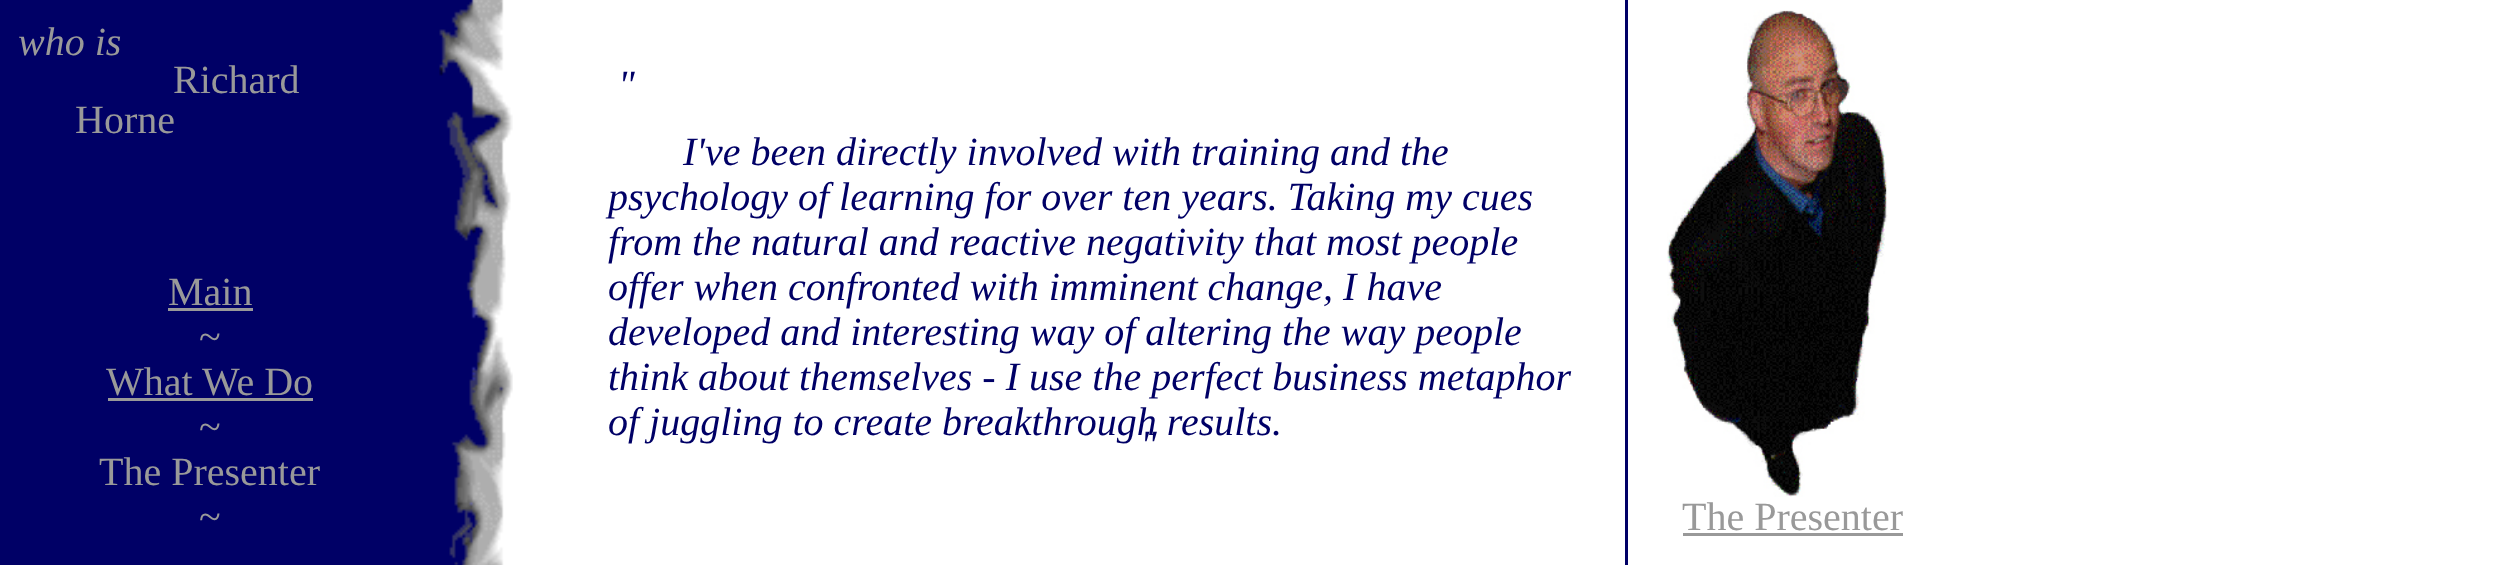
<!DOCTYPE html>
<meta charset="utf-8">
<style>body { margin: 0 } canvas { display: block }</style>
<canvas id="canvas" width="2514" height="565"></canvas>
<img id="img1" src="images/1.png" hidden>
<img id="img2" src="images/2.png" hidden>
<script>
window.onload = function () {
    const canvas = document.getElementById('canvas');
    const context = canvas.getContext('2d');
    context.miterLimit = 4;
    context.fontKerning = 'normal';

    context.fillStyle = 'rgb(255, 255, 255)';
    context.fillRect(0, 0, 2514, 565);
    context.drawImage(document.getElementById('img1'), 0, 0, 513, 565);
    context.fillStyle = 'rgb(0, 0, 102)';
    context.fillRect(1625, 0, 3, 565);
    context.drawImage(document.getElementById('img2'), 1667, 10, 221, 487);
    context.fillStyle = 'rgb(153, 153, 153)';
    context.fillRect(168, 308, 85, 3);
    context.fillRect(108, 398, 205, 3);
    context.fillRect(1683, 533, 220, 3);
    context.font = 'italic 40px Liberation Serif';
    context.fillText('who is', 18, 55);
    context.font = '40px Liberation Serif';
    context.fillText('Richard', 173, 93);
    context.font = 'italic 40px Liberation Serif';
    context.fillStyle = 'rgb(0, 0, 102)';
    context.fillText('"', 618, 98);
    context.font = '40px Liberation Serif';
    context.fillStyle = 'rgb(153, 153, 153)';
    context.fillText('Horne', 75, 133);
    context.fillText('Main', 168, 305);
    context.fillText('~', 199, 350);
    context.fillText('What We Do', 106, 395);
    context.fillText('~', 199, 440);
    context.fillText('The Presenter', 99, 485);
    context.fillText('~', 199, 530);
    context.font = 'italic 40px Liberation Serif';
    context.fillStyle = 'rgb(0, 0, 102)';
    context.fillText('I\'ve been directly involved with training and the', 683, 165);
    context.fillText('psychology of learning for over ten years. Taking my cues', 608, 210);
    context.fillText('from the natural and reactive negativity that most people', 608, 255);
    context.fillText('offer when confronted with imminent change, I have', 608, 300);
    context.fillText('developed and interesting way of altering the way people', 608, 345);
    context.fillText('think about themselves - I use the perfect business metaphor', 608, 390);
    context.fillText('of juggling to create breakthrough results.', 608, 435);
    context.fillText('"', 1140, 458);
    context.font = '40px Liberation Serif';
    context.fillStyle = 'rgb(153, 153, 153)';
    context.fillText('The Presenter', 1682, 530);
};
</script>
